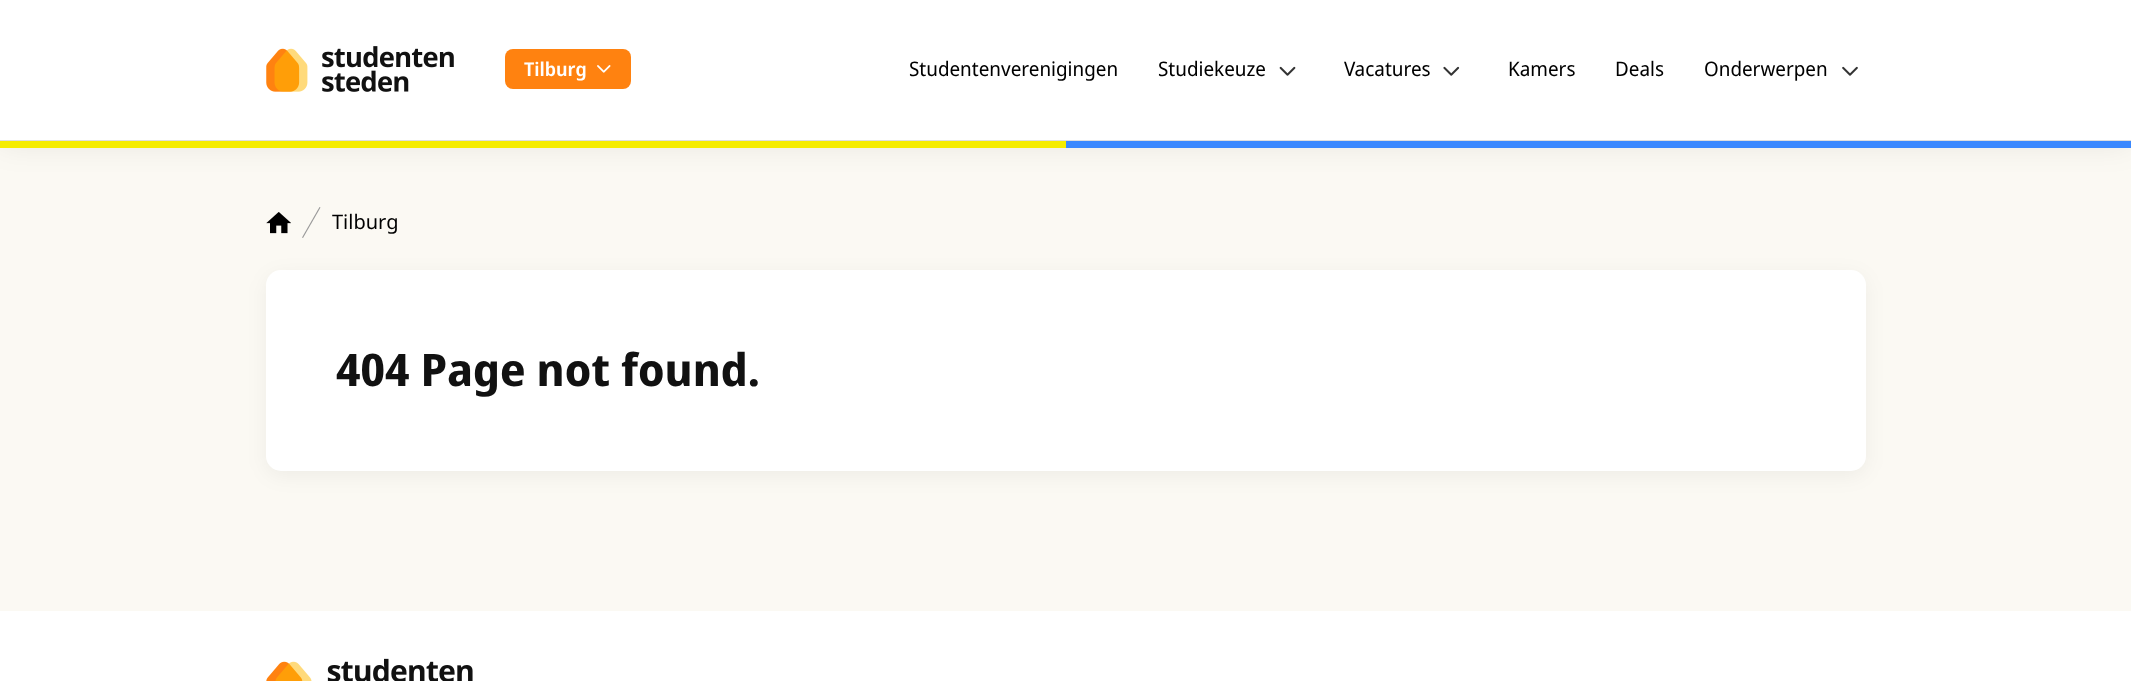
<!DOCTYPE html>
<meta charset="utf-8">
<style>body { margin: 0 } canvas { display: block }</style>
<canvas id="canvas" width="2131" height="681"></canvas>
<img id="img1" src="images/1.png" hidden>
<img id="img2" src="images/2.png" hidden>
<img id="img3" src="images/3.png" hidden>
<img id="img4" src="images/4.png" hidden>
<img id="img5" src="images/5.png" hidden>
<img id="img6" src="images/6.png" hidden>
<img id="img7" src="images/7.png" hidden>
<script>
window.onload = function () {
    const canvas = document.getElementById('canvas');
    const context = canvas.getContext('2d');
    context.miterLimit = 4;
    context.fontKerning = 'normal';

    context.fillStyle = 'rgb(251, 249, 243)';
    context.fillRect(0, 0, 2131, 681);
    context.fillStyle = 'rgba(0, 0, 0, 0.08)';
    context.filter = 'blur(15px)';
    context.beginPath();
    context.rect(0, 5, 2131, 140);
    context.fill();
    context.filter = 'none';
    context.fillStyle = 'rgb(255, 255, 255)';
    context.fillRect(0, 0, 2131, 140);
    context.drawImage(document.getElementById('img1'), 266, 46, 188, 46);
    context.fillStyle = 'rgb(255, 130, 16)';
    context.beginPath();
    context.roundRect(505, 49, 126, 40, 8);
    context.fill();
    context.drawImage(document.getElementById('img2'), 597, 65, 14, 8);
    context.drawImage(document.getElementById('img3'), 1279, 66, 17, 10);
    context.drawImage(document.getElementById('img4'), 1443, 66, 17, 10);
    context.drawImage(document.getElementById('img5'), 1842, 66, 16, 10);
    context.fillStyle = 'rgb(222, 222, 222)';
    context.fillRect(0, 140, 2131, 1);
    context.fillStyle = 'rgb(245, 236, 0)';
    context.fillRect(0, 141, 1066, 7);
    context.fillStyle = 'rgb(58, 136, 254)';
    context.fillRect(1066, 141, 1065, 7);
    context.drawImage(document.getElementById('img6'), 266, 212, 25, 22);
    context.fillStyle = 'rgb(153, 153, 153)';
    context.beginPath();
    context.moveTo(319.5, 207);
    context.lineTo(320.5, 207.5);
    context.lineTo(303, 238);
    context.lineTo(302, 237.5);
    context.closePath();
    context.fill();
    context.fillStyle = 'rgba(0, 0, 0, 0.05)';
    context.filter = 'blur(10px)';
    context.beginPath();
    context.roundRect(266, 275, 1600, 201, 15);
    context.fill();
    context.filter = 'none';
    context.fillStyle = 'rgb(255, 255, 255)';
    context.beginPath();
    context.roundRect(266, 270, 1600, 201, 15);
    context.fill();
    context.fillRect(0, 611, 2131, 70);
    context.drawImage(document.getElementById('img7'), 266, 658, 207, 23);
    context.font = '600 19px Noto Sans Display';
    context.fillText('Tilburg', 524, 76);
    context.font = '20px Noto Sans Display';
    context.fillStyle = 'rgb(0, 0, 0)';
    context.fillText('Studentenverenigingen', 909, 76);
    context.fillText('Studiekeuze', 1158, 76);
    context.fillText('Vacatures', 1344, 76);
    context.fillText('Kamers', 1508, 76);
    context.fillText('Deals', 1615, 76);
    context.fillText('Onderwerpen', 1704, 76);
    context.font = '20px Noto Sans';
    context.fillText('Tilburg', 332, 229);
    context.font = 'bold 45px Noto Sans Display';
    context.fillStyle = 'rgb(17, 17, 17)';
    context.fillText('404 Page not found.', 336, 386);
};
</script>
